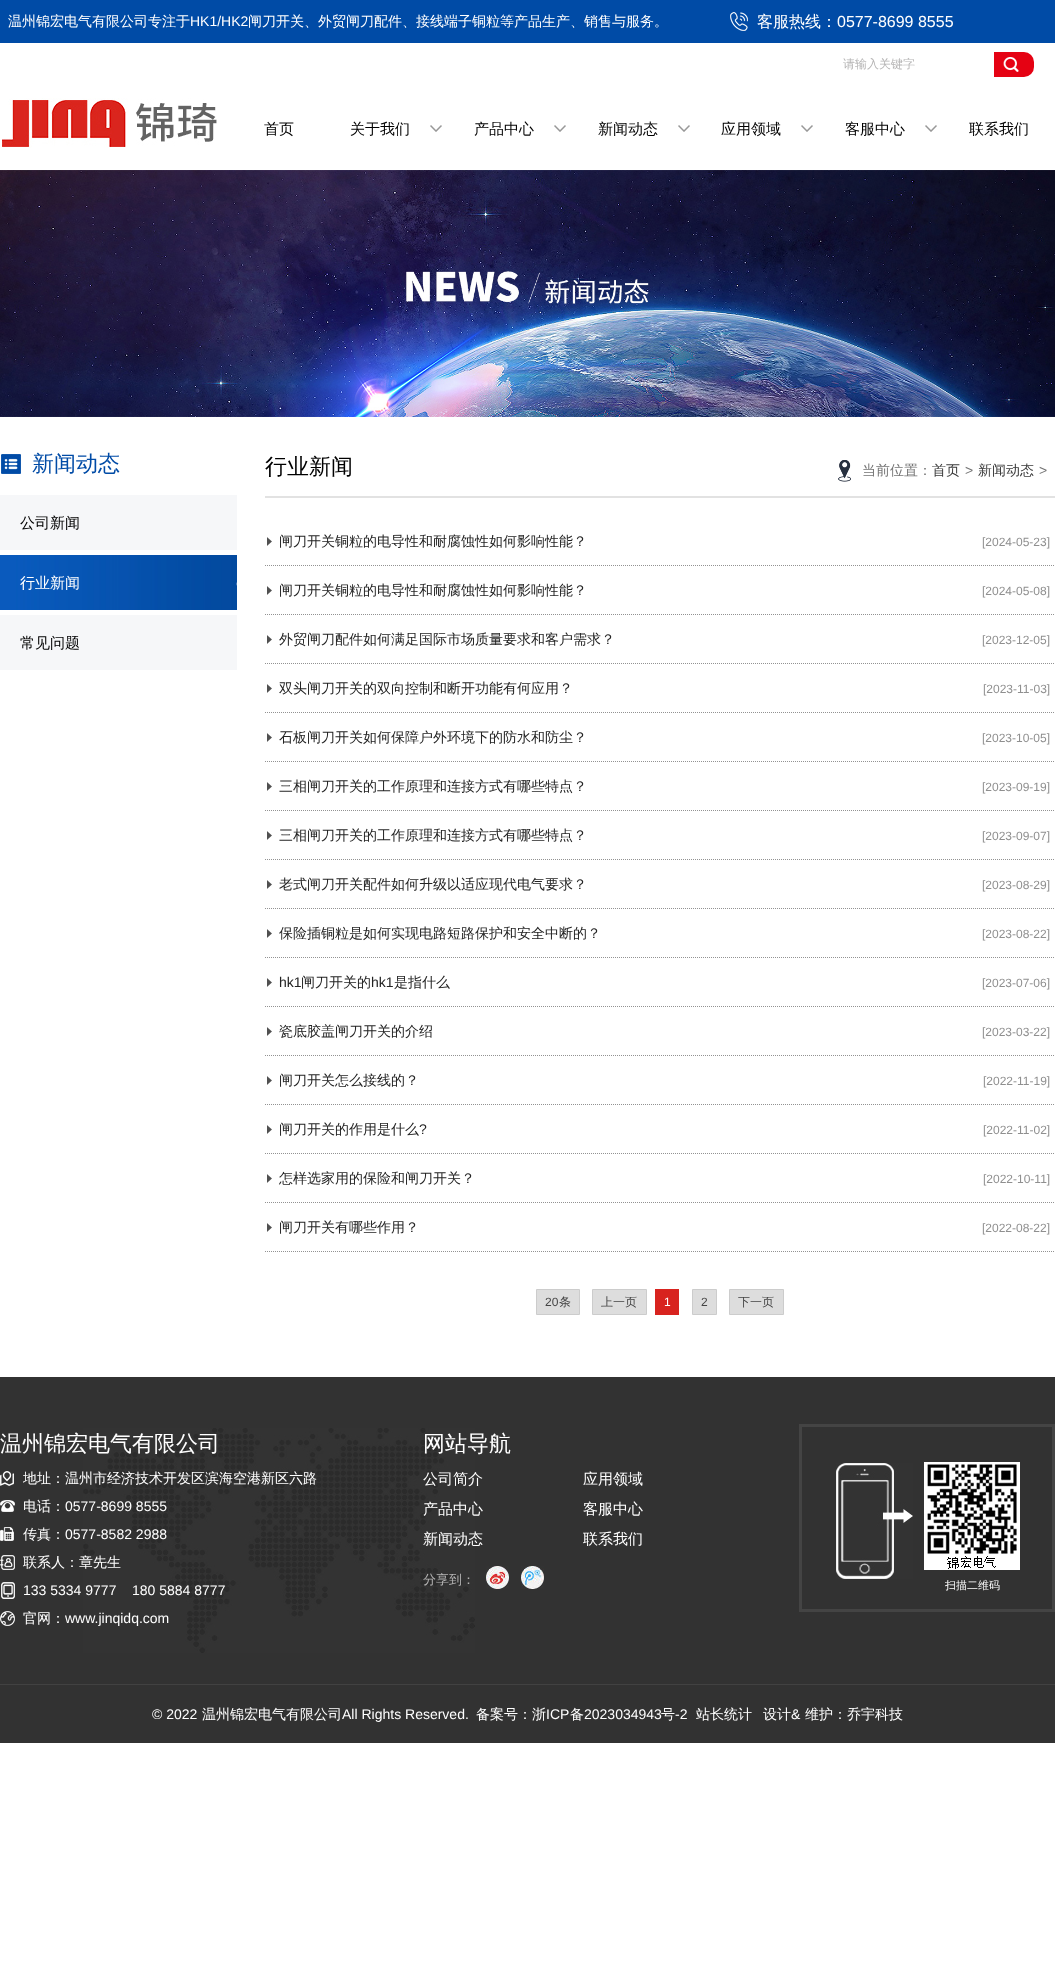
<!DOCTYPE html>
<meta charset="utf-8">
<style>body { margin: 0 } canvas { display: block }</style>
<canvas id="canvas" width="1055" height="1965"></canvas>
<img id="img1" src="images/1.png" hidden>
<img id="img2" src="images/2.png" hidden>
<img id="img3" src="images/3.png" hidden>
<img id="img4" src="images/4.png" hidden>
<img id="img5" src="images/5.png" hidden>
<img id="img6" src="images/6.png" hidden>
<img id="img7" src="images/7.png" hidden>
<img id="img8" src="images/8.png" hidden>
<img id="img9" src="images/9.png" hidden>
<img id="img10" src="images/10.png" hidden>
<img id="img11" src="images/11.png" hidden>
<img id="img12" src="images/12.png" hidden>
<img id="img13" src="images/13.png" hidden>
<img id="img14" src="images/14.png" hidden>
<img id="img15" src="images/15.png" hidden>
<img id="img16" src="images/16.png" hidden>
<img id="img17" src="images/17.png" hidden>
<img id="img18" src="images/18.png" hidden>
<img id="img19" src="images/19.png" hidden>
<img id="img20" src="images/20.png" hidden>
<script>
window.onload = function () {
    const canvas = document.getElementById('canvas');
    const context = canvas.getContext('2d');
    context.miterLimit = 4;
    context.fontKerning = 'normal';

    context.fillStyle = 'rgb(255, 255, 255)';
    context.fillRect(0, 0, 1055, 1965);
    context.fillStyle = 'rgb(0, 75, 166)';
    context.fillRect(0, 0, 1055, 43);
    context.drawImage(document.getElementById('img1'), 730, 12, 18, 19);
    context.fillStyle = 'rgb(229, 2, 19)';
    context.beginPath();
    context.roundRect(994, 52, 40, 25, [0, 10, 10, 0]);
    context.fill();
    context.drawImage(document.getElementById('img2'), 1003, 57, 16, 15);
    context.drawImage(document.getElementById('img3'), 2, 98, 215, 50);
    context.drawImage(document.getElementById('img4'), 430, 125, 12, 7);
    context.drawImage(document.getElementById('img4'), 554, 125, 12, 7);
    context.drawImage(document.getElementById('img4'), 678, 125, 12, 7);
    context.drawImage(document.getElementById('img4'), 801, 125, 12, 7);
    context.drawImage(document.getElementById('img4'), 925, 125, 12, 7);
    context.drawImage(document.getElementById('img5'), 0, 170, 1055, 247);
    context.drawImage(document.getElementById('img6'), 1, 454, 20, 20);
    context.fillStyle = 'rgb(246, 247, 249)';
    context.fillRect(0, 495, 237, 55);
    context.drawImage(document.getElementById('img7'), 0, 555, 237, 55);
    context.fillRect(0, 615, 237, 55);
    context.fillStyle = 'rgb(226, 226, 226)';
    context.fillRect(265, 496, 790, 2);
    context.drawImage(document.getElementById('img8'), 838, 460, 13, 22);
    context.drawImage(document.getElementById('img9'), 267, 537, 5, 9);
    context.beginPath();
    context.moveTo(265, 565.5);
    context.lineTo(1055, 565.5);
    context.strokeStyle = 'rgb(146, 146, 146)';
    context.setLineDash([1, 1]);
    context.stroke();
    context.drawImage(document.getElementById('img9'), 267, 586, 5, 9);
    context.beginPath();
    context.moveTo(265, 614.5);
    context.lineTo(1055, 614.5);
    context.stroke();
    context.drawImage(document.getElementById('img9'), 267, 635, 5, 9);
    context.beginPath();
    context.moveTo(265, 663.5);
    context.lineTo(1055, 663.5);
    context.stroke();
    context.drawImage(document.getElementById('img9'), 267, 684, 5, 9);
    context.beginPath();
    context.moveTo(265, 712.5);
    context.lineTo(1055, 712.5);
    context.stroke();
    context.drawImage(document.getElementById('img9'), 267, 733, 5, 9);
    context.beginPath();
    context.moveTo(265, 761.5);
    context.lineTo(1055, 761.5);
    context.stroke();
    context.drawImage(document.getElementById('img9'), 267, 782, 5, 9);
    context.beginPath();
    context.moveTo(265, 810.5);
    context.lineTo(1055, 810.5);
    context.stroke();
    context.drawImage(document.getElementById('img9'), 267, 831, 5, 9);
    context.beginPath();
    context.moveTo(265, 859.5);
    context.lineTo(1055, 859.5);
    context.stroke();
    context.drawImage(document.getElementById('img9'), 267, 880, 5, 9);
    context.beginPath();
    context.moveTo(265, 908.5);
    context.lineTo(1055, 908.5);
    context.stroke();
    context.drawImage(document.getElementById('img9'), 267, 929, 5, 9);
    context.beginPath();
    context.moveTo(265, 957.5);
    context.lineTo(1055, 957.5);
    context.stroke();
    context.drawImage(document.getElementById('img9'), 267, 978, 5, 9);
    context.beginPath();
    context.moveTo(265, 1006.5);
    context.lineTo(1055, 1006.5);
    context.stroke();
    context.drawImage(document.getElementById('img9'), 267, 1027, 5, 9);
    context.beginPath();
    context.moveTo(265, 1055.5);
    context.lineTo(1055, 1055.5);
    context.stroke();
    context.drawImage(document.getElementById('img9'), 267, 1076, 5, 9);
    context.beginPath();
    context.moveTo(265, 1104.5);
    context.lineTo(1055, 1104.5);
    context.stroke();
    context.drawImage(document.getElementById('img9'), 267, 1125, 5, 9);
    context.beginPath();
    context.moveTo(265, 1153.5);
    context.lineTo(1055, 1153.5);
    context.stroke();
    context.drawImage(document.getElementById('img9'), 267, 1174, 5, 9);
    context.beginPath();
    context.moveTo(265, 1202.5);
    context.lineTo(1055, 1202.5);
    context.stroke();
    context.drawImage(document.getElementById('img9'), 267, 1223, 5, 9);
    context.beginPath();
    context.moveTo(265, 1251.5);
    context.lineTo(1055, 1251.5);
    context.stroke();
    context.fillStyle = 'rgb(221, 221, 221)';
    context.beginPath();
    context.rect(536.5, 1289.5, 43, 25);
    context.fill();
    context.strokeStyle = 'rgb(204, 204, 204)';
    context.setLineDash([]);
    context.stroke();
    context.beginPath();
    context.rect(592.5, 1289.5, 54, 25);
    context.fill();
    context.stroke();
    context.fillStyle = 'rgb(216, 35, 31)';
    context.fillRect(655, 1289, 24, 26);
    context.fillStyle = 'rgb(221, 221, 221)';
    context.beginPath();
    context.rect(692.5, 1289.5, 24, 25);
    context.fill();
    context.stroke();
    context.beginPath();
    context.rect(729.5, 1289.5, 54, 25);
    context.fill();
    context.stroke();
    context.fillStyle = 'rgb(50, 50, 50)';
    context.fillRect(0, 1377, 1055, 307);
    context.drawImage(document.getElementById('img10'), 83, 1428, 392, 225);
    context.drawImage(document.getElementById('img11'), 0, 1471, 14, 15);
    context.drawImage(document.getElementById('img12'), 0, 1500, 15, 12);
    context.drawImage(document.getElementById('img13'), 0, 1527, 14, 14);
    context.drawImage(document.getElementById('img14'), 0, 1555, 15, 15);
    context.drawImage(document.getElementById('img15'), 1, 1582, 14, 17);
    context.drawImage(document.getElementById('img16'), 0, 1611, 15, 15);
    context.drawImage(document.getElementById('img17'), 486, 1566, 23, 23);
    context.drawImage(document.getElementById('img18'), 521, 1566, 23, 23);
    context.strokeStyle = 'rgb(68, 68, 68)';
    context.lineWidth = 3;
    context.strokeRect(800.5, 1425.5, 253, 185);
    context.drawImage(document.getElementById('img19'), 836, 1463, 77, 116);
    context.drawImage(document.getElementById('img20'), 924, 1462, 96, 108);
    context.fillRect(0, 1685, 1055, 58);
    context.fillStyle = 'rgb(66, 66, 66)';
    context.fillRect(0, 1684, 1055, 1);
    context.font = '500 14px WenQuanYi Zen Hei';
    context.fillStyle = 'rgb(255, 255, 255)';
    context.fillText('温州锦宏电气有限公司专注于', 8, 26);
    context.font = '14px Liberation Sans';
    context.fillText('HK1/HK2', 190, 26);
    context.font = '500 14px WenQuanYi Zen Hei';
    context.fillText('闸刀开关、外贸闸刀配件、接线端子铜粒等产品生产、销售与服务。', 248, 26);
    context.font = '500 16px WenQuanYi Zen Hei';
    context.fillText('客服热线：', 757, 27);
    context.font = '16px Liberation Sans';
    context.fillText('0577-8699 8555', 837, 27);
    context.font = '500 12px WenQuanYi Zen Hei';
    context.fillStyle = 'rgb(181, 180, 180)';
    context.fillText('请输入关键字', 843, 68);
    context.font = '500 15px WenQuanYi Zen Hei';
    context.fillStyle = 'rgb(0, 0, 0)';
    context.fillText('首页', 264, 134);
    context.fillText('关于我们', 350, 134);
    context.fillText('产品中心', 474, 134);
    context.fillText('新闻动态', 598, 134);
    context.fillText('应用领域', 721, 134);
    context.fillText('客服中心', 845, 134);
    context.fillText('联系我们', 969, 134);
    context.font = '500 22px WenQuanYi Zen Hei';
    context.fillStyle = 'rgb(0, 75, 166)';
    context.fillText('新闻动态', 32, 471);
    context.font = '500 15px WenQuanYi Zen Hei';
    context.fillStyle = 'rgb(0, 0, 0)';
    context.fillText('公司新闻', 20, 528);
    context.fillStyle = 'rgb(255, 255, 255)';
    context.fillText('行业新闻', 20, 588);
    context.fillStyle = 'rgb(0, 0, 0)';
    context.fillText('常见问题', 20, 648);
    context.font = '500 22px WenQuanYi Zen Hei';
    context.fillText('行业新闻', 265, 474);
    context.font = '500 14px WenQuanYi Zen Hei';
    context.fillStyle = 'rgb(116, 116, 116)';
    context.fillText('当前位置：', 862, 475);
    context.fillStyle = 'rgb(58, 58, 58)';
    context.fillText('首页', 932, 475);
    context.font = '14px Liberation Sans';
    context.fillStyle = 'rgb(116, 116, 116)';
    context.fillText('>', 965, 475);
    context.font = '500 14px WenQuanYi Zen Hei';
    context.fillStyle = 'rgb(58, 58, 58)';
    context.fillText('新闻动态', 978, 475);
    context.font = '14px Liberation Sans';
    context.fillStyle = 'rgb(116, 116, 116)';
    context.fillText('>', 1039, 475);
    context.font = '500 14px WenQuanYi Zen Hei';
    context.fillStyle = 'rgb(35, 35, 35)';
    context.fillText('闸刀开关铜粒的电导性和耐腐蚀性如何影响性能？', 279, 546);
    context.font = '12px Liberation Sans';
    context.fillStyle = 'rgb(143, 143, 143)';
    context.fillText('[2024-05-23]', 982, 546);
    context.font = '500 14px WenQuanYi Zen Hei';
    context.fillStyle = 'rgb(35, 35, 35)';
    context.fillText('闸刀开关铜粒的电导性和耐腐蚀性如何影响性能？', 279, 595);
    context.font = '12px Liberation Sans';
    context.fillStyle = 'rgb(143, 143, 143)';
    context.fillText('[2024-05-08]', 982, 595);
    context.font = '500 14px WenQuanYi Zen Hei';
    context.fillStyle = 'rgb(35, 35, 35)';
    context.fillText('外贸闸刀配件如何满足国际市场质量要求和客户需求？', 279, 644);
    context.font = '12px Liberation Sans';
    context.fillStyle = 'rgb(143, 143, 143)';
    context.fillText('[2023-12-05]', 982, 644);
    context.font = '500 14px WenQuanYi Zen Hei';
    context.fillStyle = 'rgb(35, 35, 35)';
    context.fillText('双头闸刀开关的双向控制和断开功能有何应用？', 279, 693);
    context.font = '12px Liberation Sans';
    context.fillStyle = 'rgb(143, 143, 143)';
    context.fillText('[2023-11-03]', 983, 693);
    context.font = '500 14px WenQuanYi Zen Hei';
    context.fillStyle = 'rgb(35, 35, 35)';
    context.fillText('石板闸刀开关如何保障户外环境下的防水和防尘？', 279, 742);
    context.font = '12px Liberation Sans';
    context.fillStyle = 'rgb(143, 143, 143)';
    context.fillText('[2023-10-05]', 982, 742);
    context.font = '500 14px WenQuanYi Zen Hei';
    context.fillStyle = 'rgb(35, 35, 35)';
    context.fillText('三相闸刀开关的工作原理和连接方式有哪些特点？', 279, 791);
    context.font = '12px Liberation Sans';
    context.fillStyle = 'rgb(143, 143, 143)';
    context.fillText('[2023-09-19]', 982, 791);
    context.font = '500 14px WenQuanYi Zen Hei';
    context.fillStyle = 'rgb(35, 35, 35)';
    context.fillText('三相闸刀开关的工作原理和连接方式有哪些特点？', 279, 840);
    context.font = '12px Liberation Sans';
    context.fillStyle = 'rgb(143, 143, 143)';
    context.fillText('[2023-09-07]', 982, 840);
    context.font = '500 14px WenQuanYi Zen Hei';
    context.fillStyle = 'rgb(35, 35, 35)';
    context.fillText('老式闸刀开关配件如何升级以适应现代电气要求？', 279, 889);
    context.font = '12px Liberation Sans';
    context.fillStyle = 'rgb(143, 143, 143)';
    context.fillText('[2023-08-29]', 982, 889);
    context.font = '500 14px WenQuanYi Zen Hei';
    context.fillStyle = 'rgb(35, 35, 35)';
    context.fillText('保险插铜粒是如何实现电路短路保护和安全中断的？', 279, 938);
    context.font = '12px Liberation Sans';
    context.fillStyle = 'rgb(143, 143, 143)';
    context.fillText('[2023-08-22]', 982, 938);
    context.font = '14px Liberation Sans';
    context.fillStyle = 'rgb(35, 35, 35)';
    context.fillText('hk1', 279, 987);
    context.font = '500 14px WenQuanYi Zen Hei';
    context.fillText('闸刀开关的', 301, 987);
    context.font = '14px Liberation Sans';
    context.fillText('hk1', 371, 987);
    context.font = '500 14px WenQuanYi Zen Hei';
    context.fillText('是指什么', 394, 987);
    context.font = '12px Liberation Sans';
    context.fillStyle = 'rgb(143, 143, 143)';
    context.fillText('[2023-07-06]', 982, 987);
    context.font = '500 14px WenQuanYi Zen Hei';
    context.fillStyle = 'rgb(35, 35, 35)';
    context.fillText('瓷底胶盖闸刀开关的介绍', 279, 1036);
    context.font = '12px Liberation Sans';
    context.fillStyle = 'rgb(143, 143, 143)';
    context.fillText('[2023-03-22]', 982, 1036);
    context.font = '500 14px WenQuanYi Zen Hei';
    context.fillStyle = 'rgb(35, 35, 35)';
    context.fillText('闸刀开关怎么接线的？', 279, 1085);
    context.font = '12px Liberation Sans';
    context.fillStyle = 'rgb(143, 143, 143)';
    context.fillText('[2022-11-19]', 983, 1085);
    context.font = '500 14px WenQuanYi Zen Hei';
    context.fillStyle = 'rgb(35, 35, 35)';
    context.fillText('闸刀开关的作用是什么', 279, 1134);
    context.font = '14px Liberation Sans';
    context.fillText('?', 419, 1134);
    context.font = '12px Liberation Sans';
    context.fillStyle = 'rgb(143, 143, 143)';
    context.fillText('[2022-11-02]', 983, 1134);
    context.font = '500 14px WenQuanYi Zen Hei';
    context.fillStyle = 'rgb(35, 35, 35)';
    context.fillText('怎样选家用的保险和闸刀开关？', 279, 1183);
    context.font = '12px Liberation Sans';
    context.fillStyle = 'rgb(143, 143, 143)';
    context.fillText('[2022-10-11]', 983, 1183);
    context.font = '500 14px WenQuanYi Zen Hei';
    context.fillStyle = 'rgb(35, 35, 35)';
    context.fillText('闸刀开关有哪些作用？', 279, 1232);
    context.font = '12px Liberation Sans';
    context.fillStyle = 'rgb(143, 143, 143)';
    context.fillText('[2022-08-22]', 982, 1232);
    context.fillStyle = 'rgb(68, 68, 68)';
    context.fillText('20', 545, 1306);
    context.font = '500 12px WenQuanYi Zen Hei';
    context.fillText('条', 559, 1306);
    context.fillText('上一页', 601, 1306);
    context.font = '12px Liberation Sans';
    context.fillStyle = 'rgb(255, 255, 255)';
    context.fillText('1', 664, 1306);
    context.fillStyle = 'rgb(68, 68, 68)';
    context.fillText('2', 701, 1306);
    context.font = '500 12px WenQuanYi Zen Hei';
    context.fillText('下一页', 738, 1306);
    context.font = '500 22px WenQuanYi Zen Hei';
    context.fillStyle = 'rgb(255, 255, 255)';
    context.fillText('温州锦宏电气有限公司', 0, 1451);
    context.font = '500 14px WenQuanYi Zen Hei';
    context.fillText('地址：温州市经济技术开发区滨海空港新区六路', 23, 1483);
    context.fillText('电话：', 23, 1511);
    context.font = '14px Liberation Sans';
    context.fillText('0577-8699 8555', 65, 1511);
    context.font = '500 14px WenQuanYi Zen Hei';
    context.fillText('传真：', 23, 1539);
    context.font = '14px Liberation Sans';
    context.fillText('0577-8582 2988', 65, 1539);
    context.font = '500 14px WenQuanYi Zen Hei';
    context.fillText('联系人：章先生', 23, 1567);
    context.font = '14px Liberation Sans';
    context.fillText('133 5334 9777    180 5884 8777', 23, 1595);
    context.font = '500 14px WenQuanYi Zen Hei';
    context.fillText('官网：', 23, 1623);
    context.font = '14px Liberation Sans';
    context.fillText('www.jinqidq.com', 65, 1623);
    context.font = '500 22px WenQuanYi Zen Hei';
    context.fillText('网站导航', 423, 1451);
    context.font = '500 15px WenQuanYi Zen Hei';
    context.fillText('公司简介', 423, 1484);
    context.fillText('应用领域', 583, 1484);
    context.fillText('产品中心', 423, 1514);
    context.fillText('客服中心', 583, 1514);
    context.fillText('新闻动态', 423, 1544);
    context.fillText('联系我们', 583, 1544);
    context.font = '500 13px WenQuanYi Zen Hei';
    context.fillStyle = 'rgb(181, 180, 180)';
    context.fillText('分享到：', 423, 1584);
    context.font = '500 11px WenQuanYi Zen Hei';
    context.fillStyle = 'rgb(255, 255, 255)';
    context.fillText('扫描二维码', 945, 1589);
    context.font = '14px Liberation Sans';
    context.fillText('© 2022', 152, 1719);
    context.font = '500 14px WenQuanYi Zen Hei';
    context.fillText('温州锦宏电气有限公司', 202, 1719);
    context.font = '14px Liberation Sans';
    context.fillText('All Rights Reserved.', 342, 1719);
    context.font = '500 14px WenQuanYi Zen Hei';
    context.fillText('备案号：浙', 476, 1719);
    context.font = '14px Liberation Sans';
    context.fillText('ICP', 546, 1719);
    context.font = '500 14px WenQuanYi Zen Hei';
    context.fillText('备', 570, 1719);
    context.font = '14px Liberation Sans';
    context.fillText('2023034943', 584, 1719);
    context.font = '500 14px WenQuanYi Zen Hei';
    context.fillText('号', 661, 1719);
    context.font = '14px Liberation Sans';
    context.fillText('-2', 675, 1719);
    context.font = '500 14px WenQuanYi Zen Hei';
    context.fillText('站长统计', 696, 1719);
    context.fillText('设计', 763, 1719);
    context.font = '14px Liberation Sans';
    context.fillText('&', 791, 1719);
    context.font = '500 14px WenQuanYi Zen Hei';
    context.fillText('维护：乔宇科技', 805, 1719);
};
</script>
